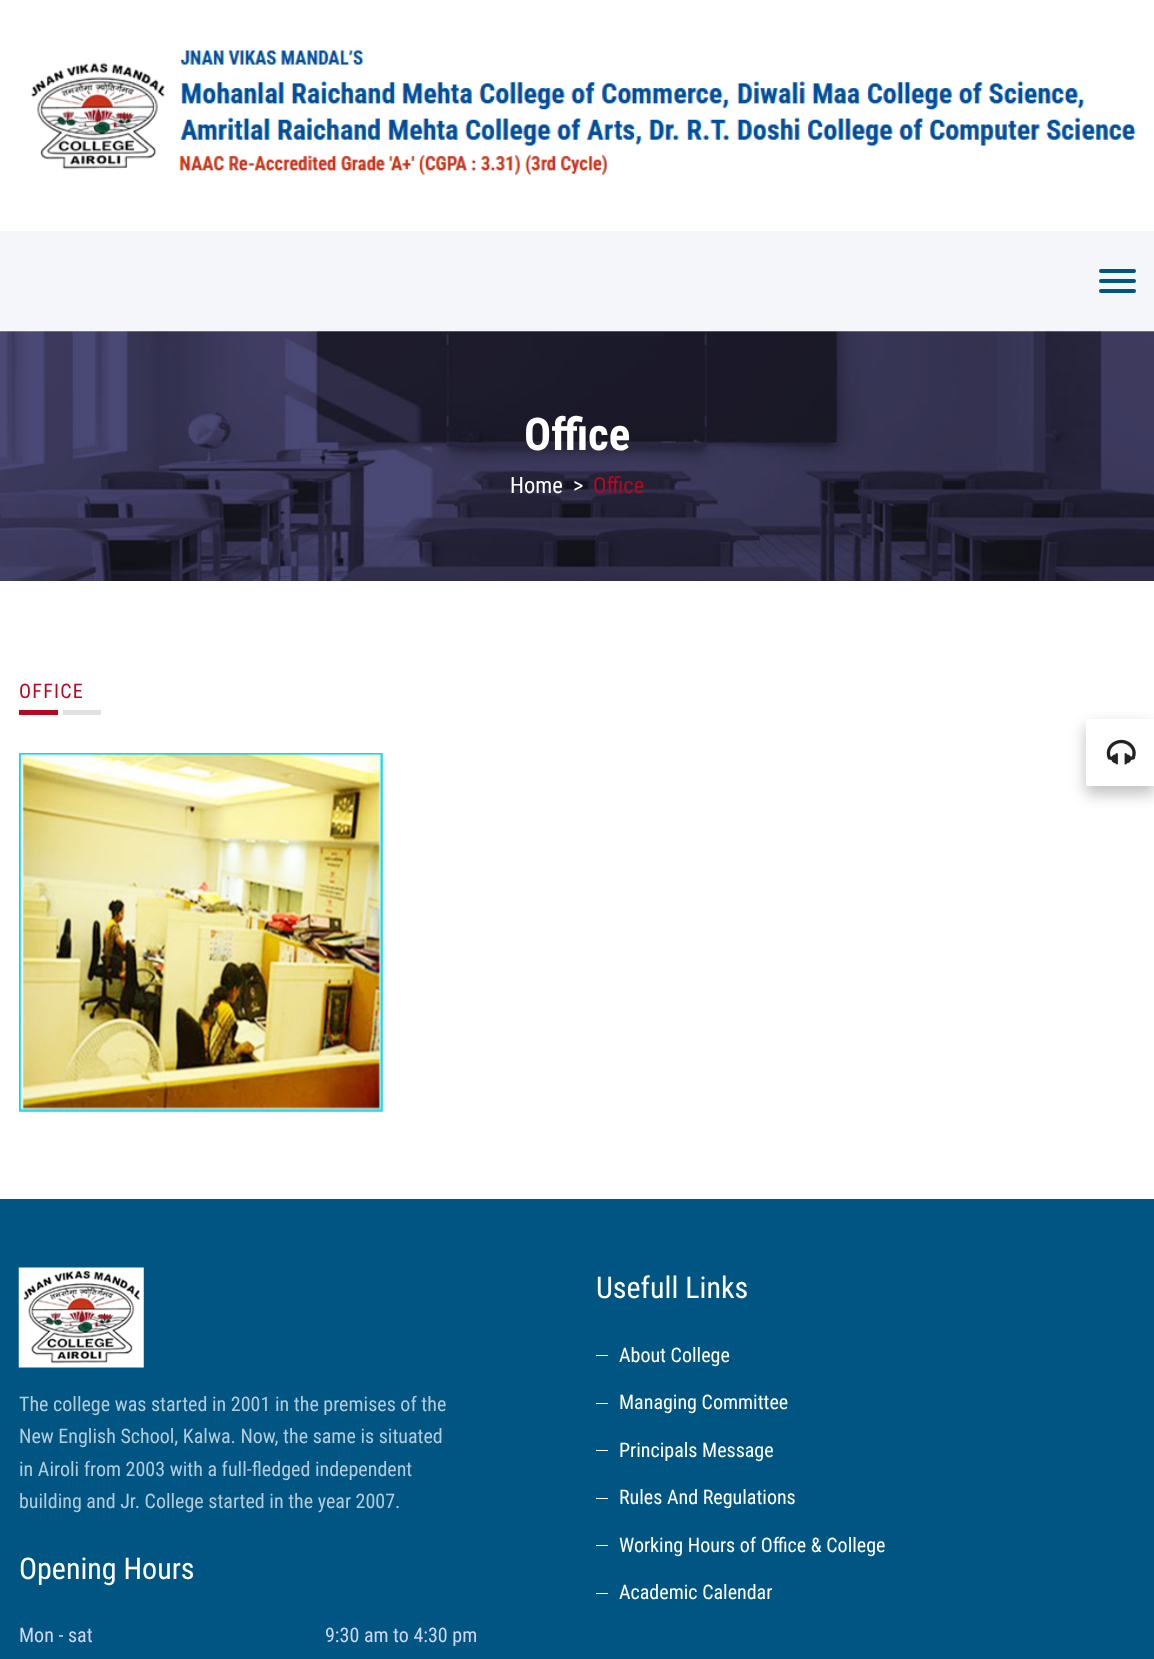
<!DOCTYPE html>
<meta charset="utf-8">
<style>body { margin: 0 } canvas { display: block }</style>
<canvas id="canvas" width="1154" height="1659"></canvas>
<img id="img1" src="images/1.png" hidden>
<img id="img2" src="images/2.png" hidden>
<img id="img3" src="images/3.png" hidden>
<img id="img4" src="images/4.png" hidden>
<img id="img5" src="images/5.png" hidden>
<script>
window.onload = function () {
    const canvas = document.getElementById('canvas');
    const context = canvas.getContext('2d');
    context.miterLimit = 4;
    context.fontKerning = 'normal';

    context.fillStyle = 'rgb(255, 255, 255)';
    context.fillRect(0, 0, 1154, 1659);
    context.drawImage(document.getElementById('img1'), 31, 50, 1105, 125);
    context.fillStyle = 'rgb(244, 246, 249)';
    context.fillRect(0, 231, 1154, 100);
    context.fillStyle = 'rgb(0, 85, 130)';
    context.beginPath();
    context.roundRect(1099, 279, 37, 4, 2);
    context.fill();
    context.beginPath();
    context.roundRect(1099, 269, 37, 4, 2);
    context.fill();
    context.beginPath();
    context.roundRect(1099, 289, 37, 4, 2);
    context.fill();
    context.drawImage(document.getElementById('img2'), 0, 331, 1154, 250);
    context.fillStyle = 'rgb(183, 8, 35)';
    context.fillRect(19, 710, 39, 5);
    context.fillStyle = 'rgb(224, 225, 227)';
    context.fillRect(63, 710, 38, 5);
    context.drawImage(document.getElementById('img3'), 19, 753, 364, 359);
    context.fillStyle = 'rgb(0, 85, 130)';
    context.fillRect(0, 1199, 1154, 460);
    context.drawImage(document.getElementById('img4'), 18, 1267, 126, 101);
    context.fillStyle = 'rgb(255, 255, 255)';
    context.fillRect(596, 1355, 12, 1);
    context.fillRect(596, 1403, 12, 1);
    context.fillRect(596, 1450, 12, 1);
    context.fillRect(596, 1498, 12, 1);
    context.fillRect(596, 1545, 12, 1);
    context.fillRect(596, 1593, 12, 1);
    context.fillStyle = 'rgba(0, 0, 0, 0.25)';
    context.filter = 'blur(7.5px)';
    context.beginPath();
    context.rect(1086, 726, 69, 68);
    context.fill();
    context.filter = 'none';
    context.fillStyle = 'rgb(255, 255, 255)';
    context.fillRect(1086, 719, 68, 67);
    context.drawImage(document.getElementById('img5'), 1106, 739, 30, 26);
    context.font = 'bold 45px Roboto Condensed';
    context.fillText('Office', 524, 450);
    context.font = '22.5px Roboto Condensed';
    context.fillText('Home', 510, 493);
    context.fillText('>', 573, 493);
    context.fillStyle = 'rgb(183, 8, 35)';
    context.fillText('Office', 593, 493);
    context.letterSpacing = '1.25px';
    context.font = '20px Roboto Condensed';
    context.fillText('OFFICE', 19, 698);
    context.letterSpacing = '0px';
    context.fillStyle = 'rgb(179, 204, 218)';
    context.fillText('The college was started in 2001 in the premises of the', 19, 1411);
    context.fillText('New English School, Kalwa. Now, the same is situated', 19, 1443);
    context.fillText('in Airoli from 2003 with a full-fledged independent', 19, 1476);
    context.fillText('building and Jr. College started in the year 2007.', 19, 1508);
    context.font = '30px Roboto Condensed';
    context.fillStyle = 'rgb(255, 255, 255)';
    context.fillText('Opening Hours', 19, 1579);
    context.font = '20px Roboto Condensed';
    context.fillStyle = 'rgb(207, 215, 245)';
    context.fillText('Mon - sat', 19, 1642);
    context.fillText('9:30 am to 4:30 pm', 325, 1642);
    context.font = '30px Roboto Condensed';
    context.fillStyle = 'rgb(255, 255, 255)';
    context.fillText('Usefull Links', 596, 1298);
    context.font = '20px Roboto Condensed';
    context.fillText('About College', 619, 1362);
    context.fillText('Managing Committee', 619, 1409);
    context.fillText('Principals Message', 619, 1457);
    context.fillText('Rules And Regulations', 619, 1504);
    context.fillText('Working Hours of Office & College', 619, 1552);
    context.fillText('Academic Calendar', 619, 1599);
};
</script>
